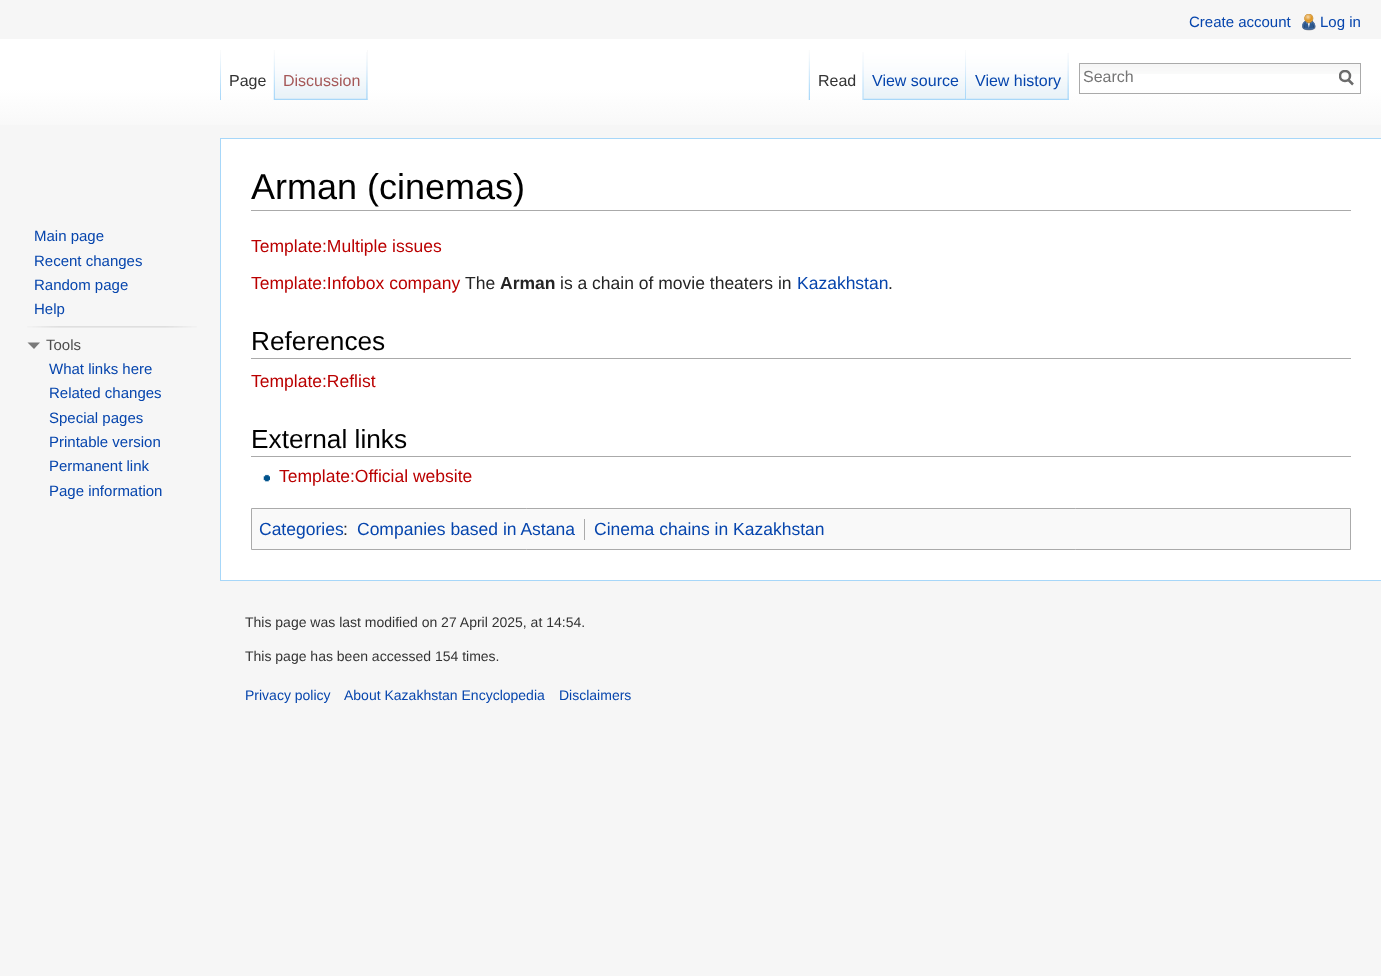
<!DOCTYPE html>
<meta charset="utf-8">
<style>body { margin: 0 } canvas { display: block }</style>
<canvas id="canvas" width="1381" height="976"></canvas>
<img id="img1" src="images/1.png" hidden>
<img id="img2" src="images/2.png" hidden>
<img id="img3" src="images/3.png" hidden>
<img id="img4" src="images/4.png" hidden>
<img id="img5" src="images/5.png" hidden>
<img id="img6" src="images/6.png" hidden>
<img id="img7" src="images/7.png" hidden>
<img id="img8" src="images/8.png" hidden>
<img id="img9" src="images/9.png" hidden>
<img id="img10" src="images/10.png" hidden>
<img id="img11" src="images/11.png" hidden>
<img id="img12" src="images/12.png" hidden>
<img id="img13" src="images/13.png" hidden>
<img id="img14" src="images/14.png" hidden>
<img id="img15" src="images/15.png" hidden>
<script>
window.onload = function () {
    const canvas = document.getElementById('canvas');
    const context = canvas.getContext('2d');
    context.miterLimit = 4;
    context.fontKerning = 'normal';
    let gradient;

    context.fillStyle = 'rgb(246, 246, 246)';
    context.fillRect(0, 0, 1381, 976);
    context.drawImage(document.getElementById('img1'), 1302, 14, 14, 17);
    gradient = context.createLinearGradient(691, 39, 691, 139);
    gradient.addColorStop(0.5, 'rgb(255, 255, 255)');
    gradient.addColorStop(1, 'rgb(246, 246, 246)');
    context.fillStyle = gradient;
    context.fillRect(0, 39, 1381, 86);
    context.drawImage(document.getElementById('img2'), 220, 50, 1, 50);
    context.drawImage(document.getElementById('img3'), 273, 50, 2, 50);
    context.fillStyle = 'rgb(243, 243, 243)';
    context.fillRect(367, 50, 1, 50);
    context.drawImage(document.getElementById('img4'), 275, 50, 93, 50);
    context.drawImage(document.getElementById('img5'), 366, 52, 2, 48);
    context.drawImage(document.getElementById('img6'), 808, 50, 2, 50);
    context.drawImage(document.getElementById('img7'), 1068, 52, 1, 48);
    context.drawImage(document.getElementById('img8'), 862, 52, 2, 48);
    context.drawImage(document.getElementById('img9'), 863, 50, 104, 50);
    context.drawImage(document.getElementById('img10'), 965, 50, 2, 50);
    context.drawImage(document.getElementById('img11'), 966, 50, 103, 50);
    context.drawImage(document.getElementById('img12'), 1067, 53, 2, 47);
    context.drawImage(document.getElementById('img13'), 1080, 64, 280, 10);
    context.strokeStyle = 'rgb(170, 170, 170)';
    context.strokeRect(1079.5, 63.5, 281, 30);
    context.beginPath();
    context.moveTo(1353, 84.5);
    context.lineTo(1348, 79.5);
    context.strokeStyle = 'rgb(108, 108, 108)';
    context.lineWidth = 2.5;
    context.stroke();
    context.save();
    context.beginPath();
    context.rect(1339, 70, 15, 16);
    context.clip();
    context.beginPath();
    context.arc(1345, 76, 5, 0, 2 * Math.PI);
    context.stroke();
    context.restore();
    context.drawImage(document.getElementById('img14'), 27, 326, 170, 2);
    context.fillStyle = 'rgb(121, 121, 121)';
    context.beginPath();
    context.moveTo(40, 342.5);
    context.lineTo(34, 349);
    context.lineTo(27.5, 342.5);
    context.closePath();
    context.fill();
    context.fillStyle = 'rgb(255, 255, 255)';
    context.fillRect(221, 139, 1160, 441);
    context.fillStyle = 'rgb(167, 215, 249)';
    context.fillRect(220, 138, 1161, 1);
    context.fillRect(220, 580, 1161, 1);
    context.fillRect(220, 138, 1, 443);
    context.fillStyle = 'rgb(170, 170, 170)';
    context.fillRect(251, 210, 1100, 1);
    context.fillRect(251, 358, 1100, 1);
    context.fillRect(251, 456, 1100, 1);
    context.drawImage(document.getElementById('img15'), 263, 474, 7, 8);
    context.fillStyle = 'rgb(249, 249, 249)';
    context.beginPath();
    context.rect(251.5, 508.5, 1099, 41);
    context.fill();
    context.strokeStyle = 'rgb(170, 170, 170)';
    context.lineWidth = 1;
    context.stroke();
    context.fillStyle = 'rgb(170, 170, 170)';
    context.fillRect(584, 519, 1, 21);
    context.font = '15px Liberation Sans';
    context.fillStyle = 'rgb(6, 69, 173)';
    context.fillText('Create account', 1189, 27);
    context.fillText('Log in', 1320, 27);
    context.font = '16px Liberation Sans';
    context.fillStyle = 'rgb(51, 51, 51)';
    context.fillText('Page', 229, 86);
    context.fillStyle = 'rgb(165, 88, 88)';
    context.fillText('Discussion', 283, 86);
    context.fillStyle = 'rgb(51, 51, 51)';
    context.fillText('Read', 818, 86);
    context.fillStyle = 'rgb(6, 69, 173)';
    context.fillText('View source', 872, 86);
    context.fillText('View history', 975, 86);
    context.fillStyle = 'rgb(117, 117, 117)';
    context.fillText('Search', 1083, 82);
    context.font = '15px Liberation Sans';
    context.fillStyle = 'rgb(6, 69, 173)';
    context.fillText('Main page', 34, 241);
    context.fillText('Recent changes', 34, 266);
    context.fillText('Random page', 34, 290);
    context.fillText('Help', 34, 314);
    context.fillStyle = 'rgb(77, 77, 77)';
    context.fillText('Tools', 46, 350);
    context.fillStyle = 'rgb(6, 69, 173)';
    context.fillText('What links here', 49, 374);
    context.fillText('Related changes', 49, 398);
    context.fillText('Special pages', 49, 423);
    context.fillText('Printable version', 49, 447);
    context.fillText('Permanent link', 49, 471);
    context.fillText('Page information', 49, 496);
    context.font = '36px Liberation Sans';
    context.fillStyle = 'rgb(0, 0, 0)';
    context.fillText('Arman (cinemas)', 251, 199);
    context.font = '17.5px Liberation Sans';
    context.fillStyle = 'rgb(186, 0, 0)';
    context.fillText('Template:Multiple issues', 251, 252);
    context.fillText('Template:Infobox company', 251, 289);
    context.fillStyle = 'rgb(37, 37, 37)';
    context.fillText('The', 465, 289);
    context.font = 'bold 17.5px Liberation Sans';
    context.fillText('Arman', 500, 289);
    context.font = '17.5px Liberation Sans';
    context.fillText('is a chain of movie theaters in', 560, 289);
    context.fillStyle = 'rgb(6, 69, 173)';
    context.fillText('Kazakhstan', 797, 289);
    context.fillStyle = 'rgb(37, 37, 37)';
    context.fillText('.', 888, 289);
    context.font = '26.25px Liberation Sans';
    context.fillStyle = 'rgb(0, 0, 0)';
    context.fillText('References', 251, 350);
    context.font = '17.5px Liberation Sans';
    context.fillStyle = 'rgb(186, 0, 0)';
    context.fillText('Template:Reflist', 251, 387);
    context.font = '26.25px Liberation Sans';
    context.fillStyle = 'rgb(0, 0, 0)';
    context.fillText('External links', 251, 448);
    context.font = '17.5px Liberation Sans';
    context.fillStyle = 'rgb(186, 0, 0)';
    context.fillText('Template:Official website', 279, 482);
    context.fillStyle = 'rgb(6, 69, 173)';
    context.fillText('Categories', 259, 535);
    context.fillStyle = 'rgb(37, 37, 37)';
    context.fillText(':', 343, 535);
    context.fillStyle = 'rgb(6, 69, 173)';
    context.fillText('Companies based in Astana', 357, 535);
    context.fillText('Cinema chains in Kazakhstan', 594, 535);
    context.font = '14px Liberation Sans';
    context.fillStyle = 'rgb(51, 51, 51)';
    context.fillText('This page was last modified on 27 April 2025, at 14:54.', 245, 627);
    context.fillText('This page has been accessed 154 times.', 245, 661);
    context.fillStyle = 'rgb(6, 69, 173)';
    context.fillText('Privacy policy', 245, 700);
    context.fillText('About Kazakhstan Encyclopedia', 344, 700);
    context.fillText('Disclaimers', 559, 700);
};
</script>
